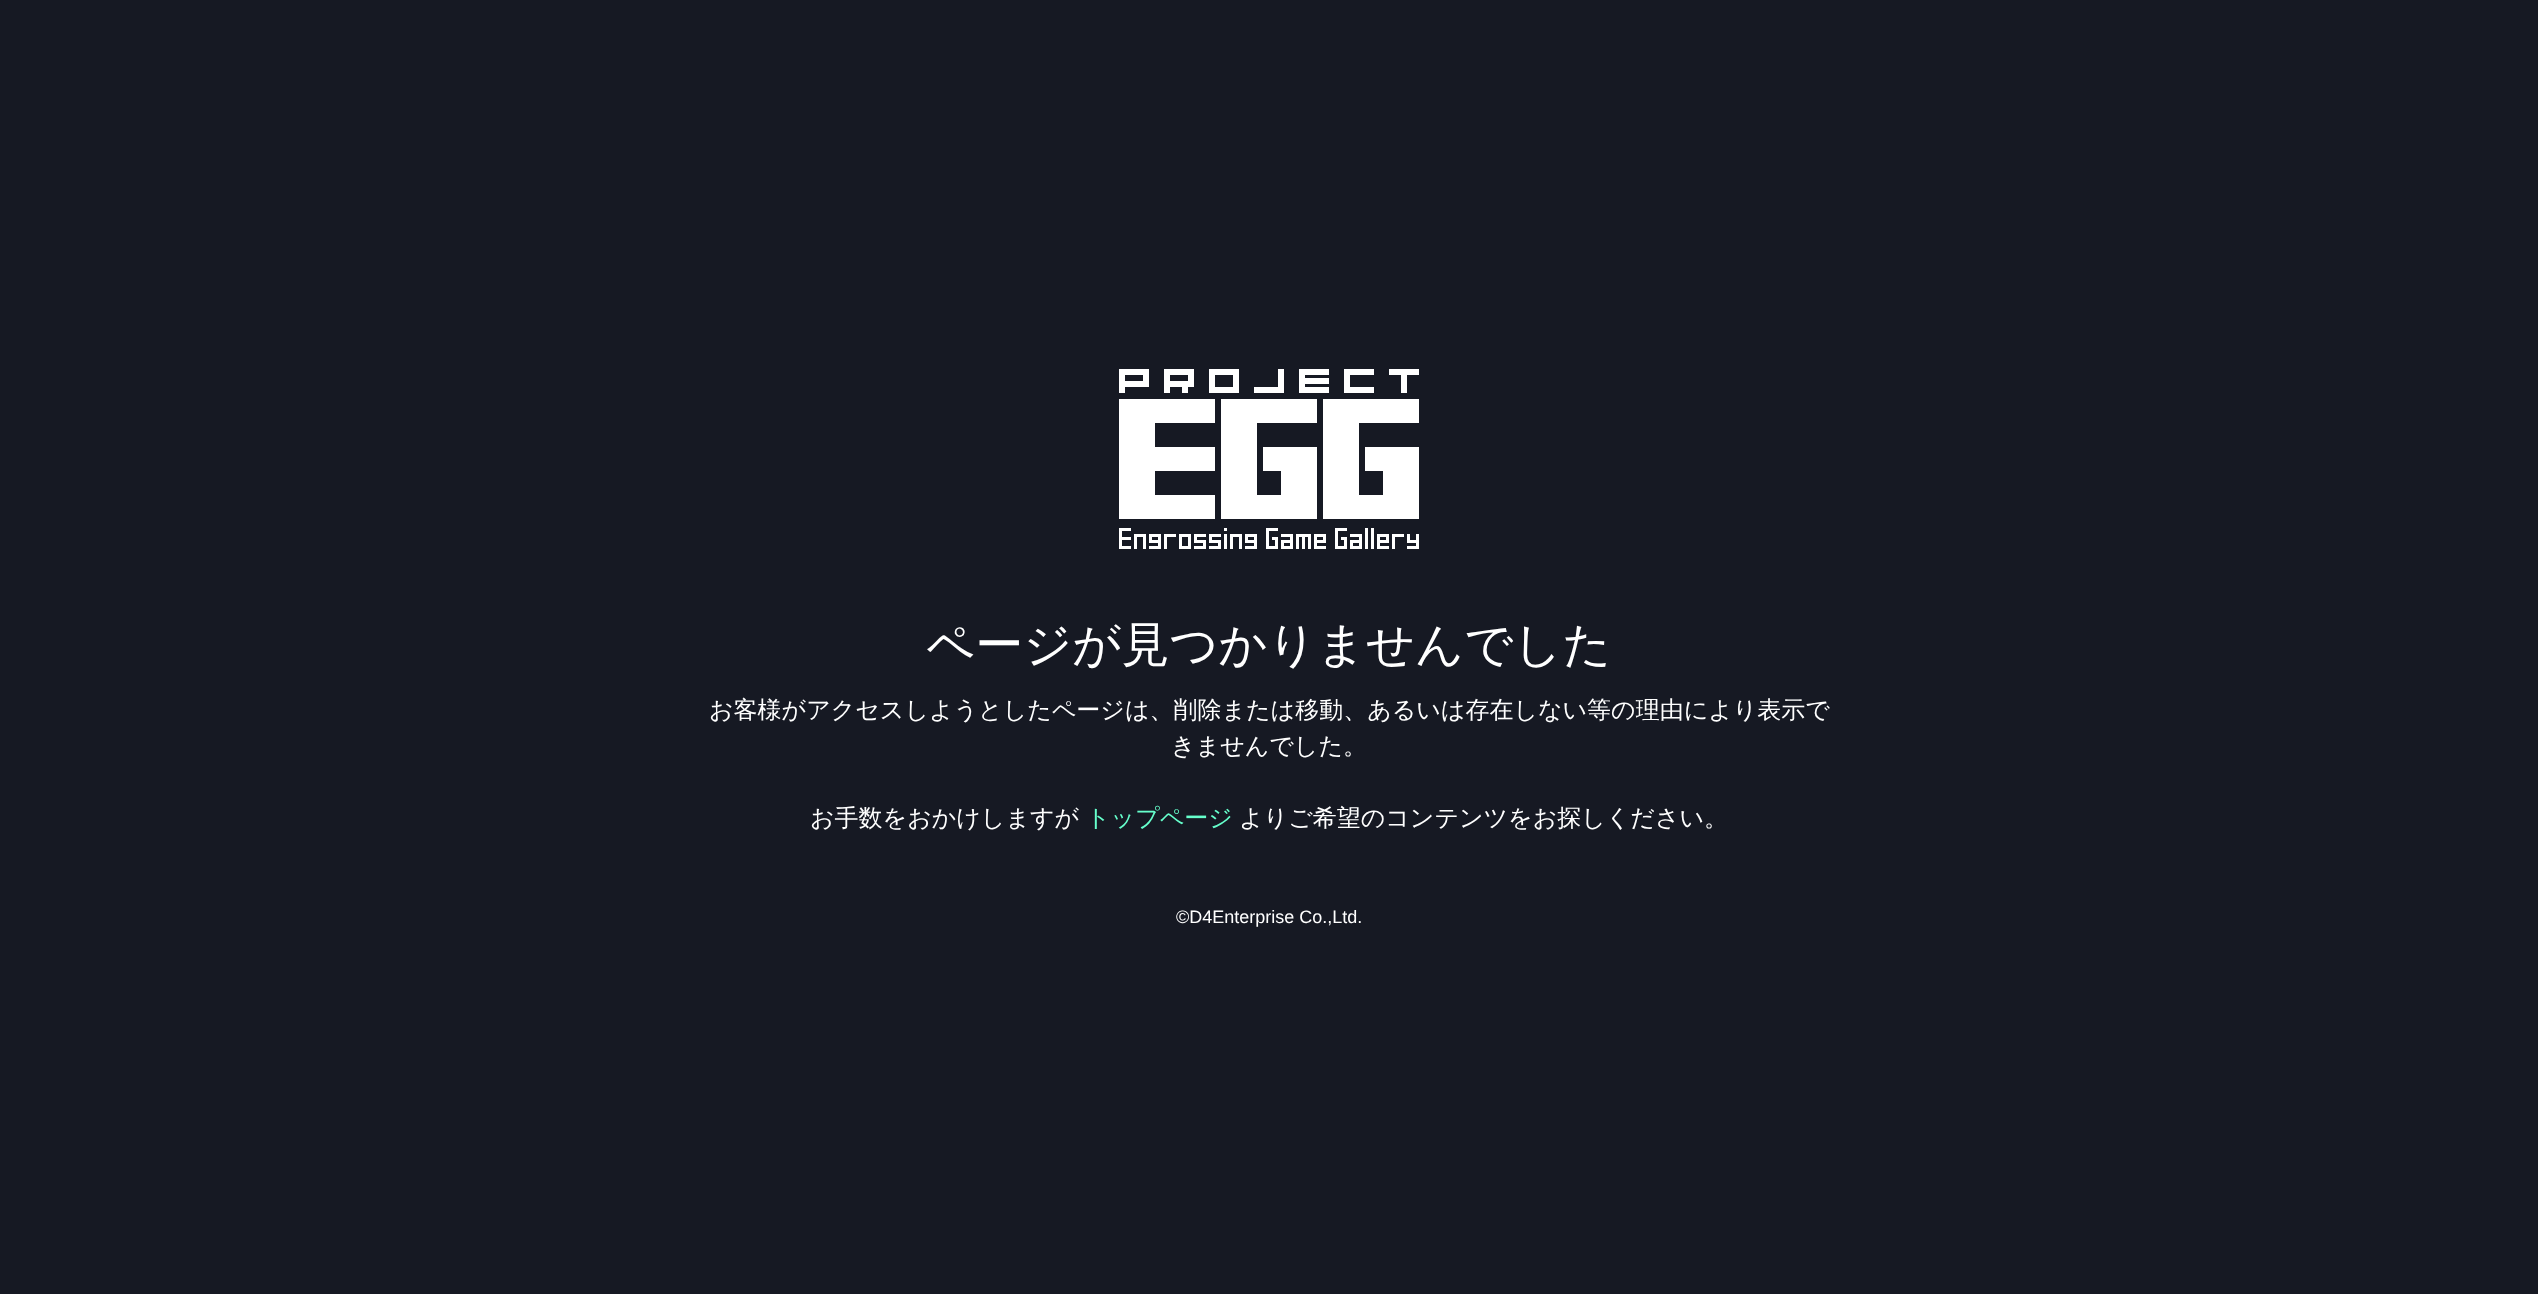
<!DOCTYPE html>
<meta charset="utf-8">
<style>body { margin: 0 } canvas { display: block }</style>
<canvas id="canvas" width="2538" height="1294"></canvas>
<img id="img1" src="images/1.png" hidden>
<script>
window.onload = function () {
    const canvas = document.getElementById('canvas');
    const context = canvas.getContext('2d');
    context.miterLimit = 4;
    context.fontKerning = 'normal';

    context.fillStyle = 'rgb(22, 25, 35)';
    context.fillRect(0, 0, 2538, 1294);
    context.drawImage(document.getElementById('img1'), 1119, 369, 300, 180);
    context.font = '500 48px WenQuanYi Zen Hei';
    context.fillStyle = 'rgb(255, 255, 255)';
    context.fillText('ページが見つかりませんでした', 926, 661);
    context.font = '500 24px WenQuanYi Zen Hei';
    context.fillText('お客様がアクセスしようとしたページは、削除または移動、あるいは存在しない等の理由により表示で', 709, 718);
    context.fillText('きませんでした。', 1171, 754);
    context.fillText('お手数をおかけしますが', 810, 826);
    context.fillStyle = 'rgb(102, 255, 204)';
    context.fillText('トップページ', 1086, 826);
    context.fillStyle = 'rgb(255, 255, 255)';
    context.fillText('よりご希望のコンテンツをお探しください。', 1239, 826);
    context.font = '18px Liberation Sans';
    context.fillText('©D4Enterprise Co.,Ltd.', 1176, 923);
};
</script>
